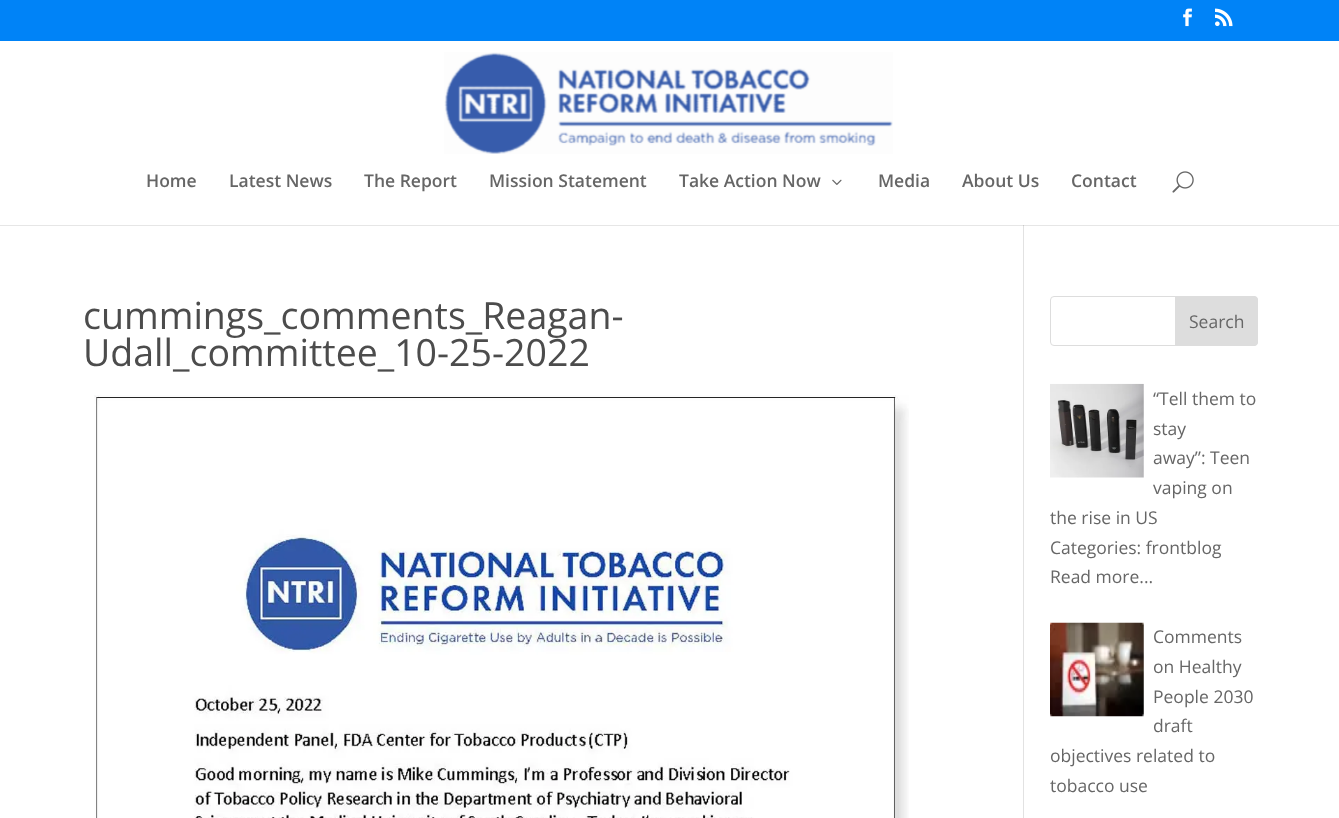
<!DOCTYPE html>
<meta charset="utf-8">
<style>body { margin: 0 } canvas { display: block }</style>
<canvas id="canvas" width="1339" height="818"></canvas>
<img id="img1" src="images/1.png" hidden>
<img id="img2" src="images/2.png" hidden>
<img id="img3" src="images/3.png" hidden>
<img id="img4" src="images/4.png" hidden>
<img id="img5" src="images/5.png" hidden>
<img id="img6" src="images/6.png" hidden>
<img id="img7" src="images/7.png" hidden>
<img id="img8" src="images/8.png" hidden>
<script>
window.onload = function () {
    const canvas = document.getElementById('canvas');
    const context = canvas.getContext('2d');
    context.miterLimit = 4;
    context.fontKerning = 'normal';

    context.fillStyle = 'rgb(255, 255, 255)';
    context.fillRect(0, 0, 1339, 818);
    context.fillStyle = 'rgb(230, 230, 230)';
    context.fillRect(0, 225, 1339, 1);
    context.fillStyle = 'rgb(0, 131, 247)';
    context.fillRect(0, 0, 1339, 41);
    context.drawImage(document.getElementById('img1'), 1183, 8, 9, 19);
    context.drawImage(document.getElementById('img2'), 1215, 8, 18, 19);
    context.fillStyle = 'rgb(226, 226, 226)';
    context.fillRect(1023, 224, 1, 594);
    context.fillStyle = 'rgb(255, 255, 255)';
    context.fillRect(1023, 224, 1, 1);
    context.drawImage(document.getElementById('img3'), 444, 52, 449, 102);
    context.drawImage(document.getElementById('img4'), 832, 179, 10, 6);
    context.drawImage(document.getElementById('img5'), 1172, 171, 22, 22);
    context.fillStyle = 'rgb(203, 203, 203)';
    context.fillRect(1023, 225, 1, 1);
    context.drawImage(document.getElementById('img6'), 94, 395, 815, 423);
    context.beginPath();
    context.roundRect(1050.5, 296.5, 207, 49, 3.5);
    context.strokeStyle = 'rgb(221, 221, 221)';
    context.stroke();
    context.fillStyle = 'rgb(221, 221, 221)';
    context.beginPath();
    context.roundRect(1175.5, 296.5, 82, 49, [0, 3.5, 3.5, 0]);
    context.fill();
    context.stroke();
    context.drawImage(document.getElementById('img7'), 1050, 383, 94, 95);
    context.drawImage(document.getElementById('img8'), 1050, 622, 94, 95);
    context.font = '600 17.5px Open Sans';
    context.fillStyle = 'rgb(102, 102, 102)';
    context.fillText('Home', 146, 187);
    context.fillText('Latest News', 229, 187);
    context.fillText('The Report', 364, 187);
    context.fillText('Mission Statement', 489, 187);
    context.fillText('Take Action Now', 679, 187);
    context.fillText('Media', 878, 187);
    context.fillText('About Us', 962, 187);
    context.fillText('Contact', 1071, 187);
    context.font = '37.5px Open Sans';
    context.fillStyle = 'rgb(76, 76, 76)';
    context.fillText('cummings_comments_Reagan-', 83, 329);
    context.fillText('Udall_committee_10-25-2022', 83, 366);
    context.font = '17.5px Open Sans';
    context.fillStyle = 'rgb(102, 102, 102)';
    context.fillText('Search', 1189, 328);
    context.fillText('“Tell them to', 1153, 405);
    context.fillText('stay', 1153, 435);
    context.fillText('away”: Teen', 1153, 464);
    context.fillText('vaping on', 1153, 494);
    context.fillText('the rise in US', 1050, 524);
    context.fillText('Categories: frontblog', 1050, 554);
    context.fillText('Read more...', 1050, 583);
    context.fillText('Comments', 1153, 643);
    context.fillText('on Healthy', 1153, 673);
    context.fillText('People 2030', 1153, 703);
    context.fillText('draft', 1153, 732);
    context.fillText('objectives related to', 1050, 762);
    context.fillText('tobacco use', 1050, 792);
};
</script>
